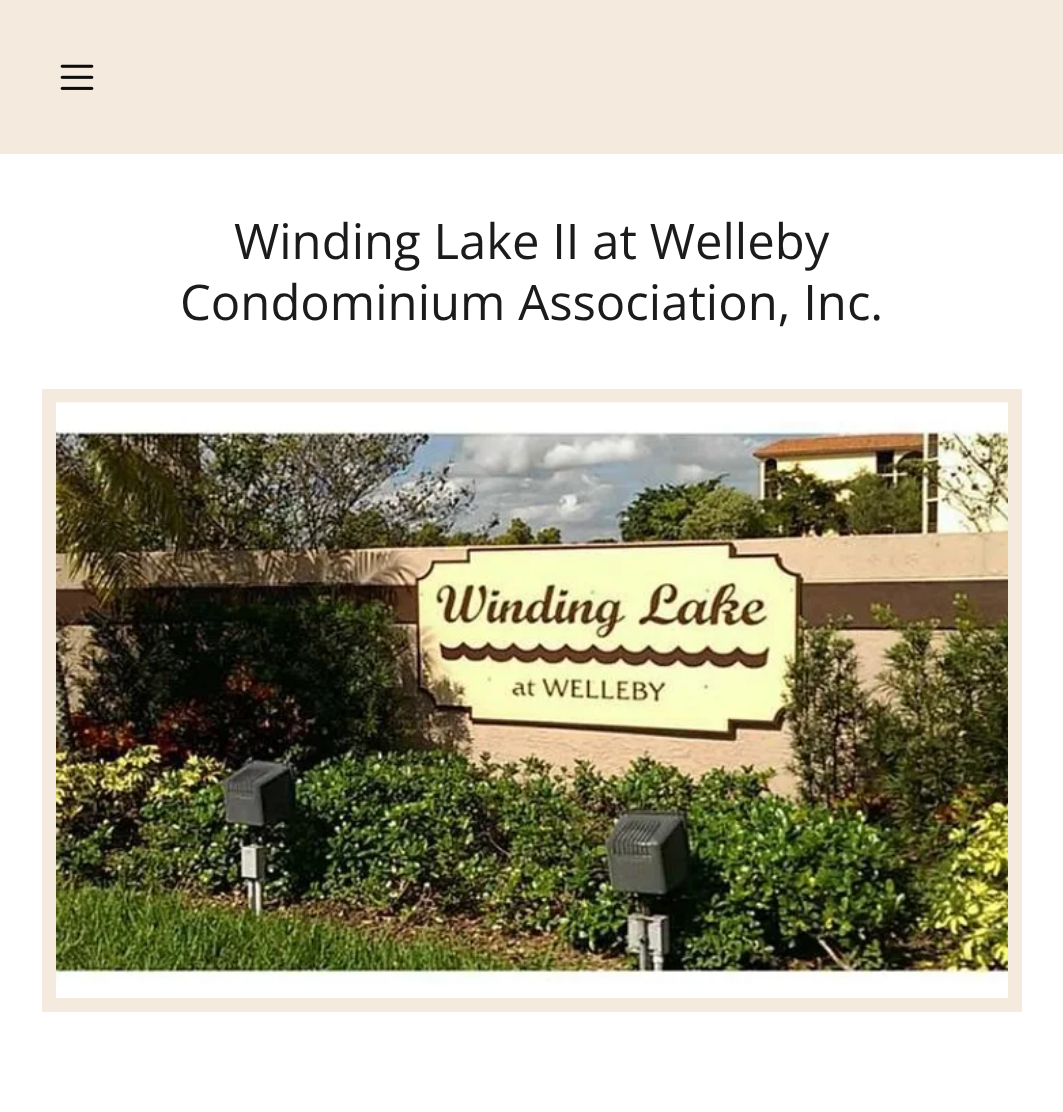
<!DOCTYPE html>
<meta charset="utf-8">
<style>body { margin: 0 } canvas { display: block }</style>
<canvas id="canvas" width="1063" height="1112"></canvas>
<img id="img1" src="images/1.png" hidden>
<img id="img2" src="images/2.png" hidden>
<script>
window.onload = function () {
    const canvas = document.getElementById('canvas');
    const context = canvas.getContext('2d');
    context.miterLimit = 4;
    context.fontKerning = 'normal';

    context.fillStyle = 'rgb(255, 255, 255)';
    context.fillRect(0, 0, 1063, 1112);
    context.fillStyle = 'rgb(244, 235, 222)';
    context.fillRect(0, 0, 1063, 154);
    context.drawImage(document.getElementById('img1'), 60, 64, 34, 26);
    context.strokeStyle = 'rgb(244, 235, 222)';
    context.lineWidth = 14;
    context.strokeRect(49, 396, 966, 609);
    context.drawImage(document.getElementById('img2'), 56, 402, 952, 583);
    context.font = '49px Open Sans';
    context.fillStyle = 'rgb(27, 27, 27)';
    context.fillText('Winding Lake II at Welleby', 234, 259);
    context.fillText('Condominium Association, Inc.', 180, 320);
};
</script>
